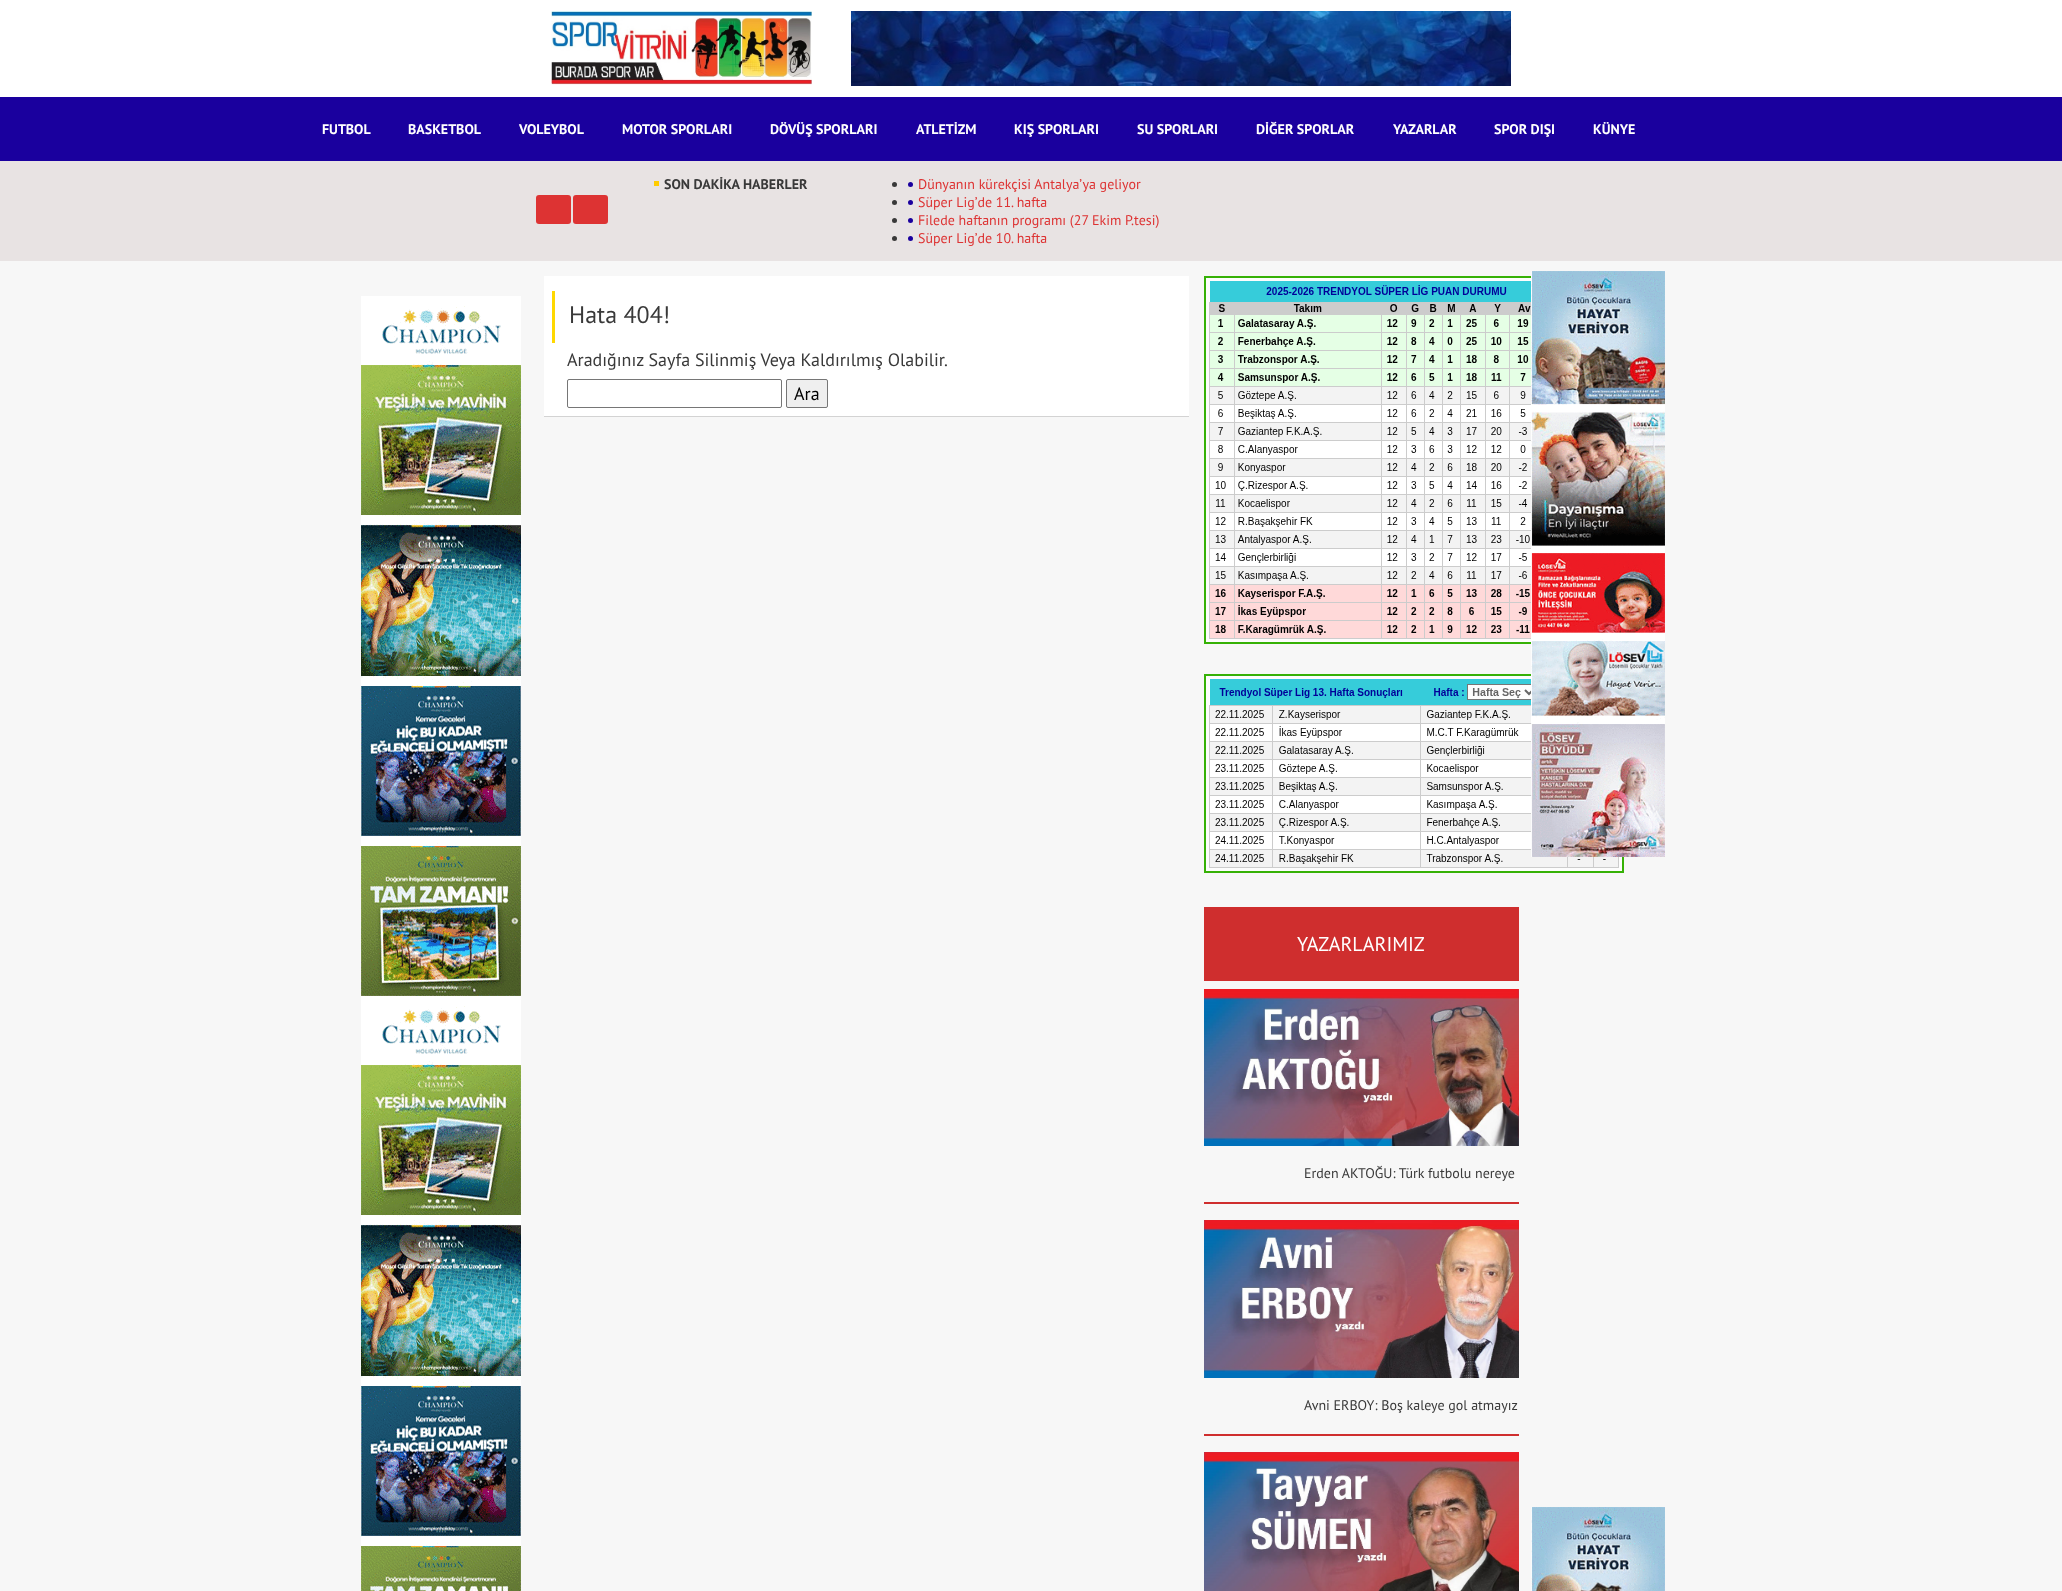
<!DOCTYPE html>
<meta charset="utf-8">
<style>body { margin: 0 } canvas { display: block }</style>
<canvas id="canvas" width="2062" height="1591"></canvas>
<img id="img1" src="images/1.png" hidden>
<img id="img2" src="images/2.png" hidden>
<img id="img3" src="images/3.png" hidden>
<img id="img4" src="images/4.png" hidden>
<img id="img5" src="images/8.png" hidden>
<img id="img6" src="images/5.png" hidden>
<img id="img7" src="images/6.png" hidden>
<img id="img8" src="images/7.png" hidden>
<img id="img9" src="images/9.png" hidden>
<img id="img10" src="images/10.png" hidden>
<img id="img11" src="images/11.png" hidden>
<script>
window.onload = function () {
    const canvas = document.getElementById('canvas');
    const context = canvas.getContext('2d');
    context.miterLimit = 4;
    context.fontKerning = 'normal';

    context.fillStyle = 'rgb(247, 247, 247)';
    context.fillRect(0, 0, 2062, 1591);
    context.fillStyle = 'rgb(255, 255, 255)';
    context.fillRect(0, 0, 2062, 97);
    context.drawImage(document.getElementById('img1'), 551, 11, 261, 74);
    context.drawImage(document.getElementById('img2'), 851, 11, 660, 75);
    context.fillStyle = 'rgb(26, 0, 158)';
    context.fillRect(0, 97, 2062, 64);
    context.fillStyle = 'rgb(232, 227, 227)';
    context.fillRect(0, 161, 2062, 100);
    context.fillStyle = 'rgb(255, 204, 0)';
    context.fillRect(654, 181, 5, 5);
    context.fillStyle = 'rgb(221, 51, 51)';
    context.beginPath();
    context.roundRect(536, 195, 35, 29, 3);
    context.fill();
    context.beginPath();
    context.roundRect(573, 195, 35, 29, 3);
    context.fill();
    context.fillStyle = 'rgb(57, 57, 57)';
    context.beginPath();
    context.arc(894.5, 184.5, 2.5, 0, 2 * Math.PI);
    context.fill();
    context.fillStyle = 'rgb(26, 0, 158)';
    context.beginPath();
    context.arc(910.5, 184.5, 2.5, 0, 2 * Math.PI);
    context.fill();
    context.fillStyle = 'rgb(57, 57, 57)';
    context.beginPath();
    context.arc(894.5, 202.5, 2.5, 0, 2 * Math.PI);
    context.fill();
    context.fillStyle = 'rgb(26, 0, 158)';
    context.beginPath();
    context.arc(910.5, 202.5, 2.5, 0, 2 * Math.PI);
    context.fill();
    context.fillStyle = 'rgb(57, 57, 57)';
    context.beginPath();
    context.arc(894.5, 220.5, 2.5, 0, 2 * Math.PI);
    context.fill();
    context.fillStyle = 'rgb(26, 0, 158)';
    context.beginPath();
    context.arc(910.5, 220.5, 2.5, 0, 2 * Math.PI);
    context.fill();
    context.fillStyle = 'rgb(57, 57, 57)';
    context.beginPath();
    context.arc(894.5, 238.5, 2.5, 0, 2 * Math.PI);
    context.fill();
    context.fillStyle = 'rgb(26, 0, 158)';
    context.beginPath();
    context.arc(910.5, 238.5, 2.5, 0, 2 * Math.PI);
    context.fill();
    context.drawImage(document.getElementById('img3'), 361, 296, 160, 700);
    context.drawImage(document.getElementById('img4'), 361, 996, 160, 595);
    context.drawImage(document.getElementById('img5'), 1204, 674, 420, 199);
    context.drawImage(document.getElementById('img6'), 1531, 271, 134, 586);
    context.drawImage(document.getElementById('img7'), 1531, 1507, 134, 84);
    context.fillStyle = 'rgb(211, 211, 211)';
    context.filter = 'blur(0.5px)';
    context.beginPath();
    context.rect(544, 277, 645, 140);
    context.fill();
    context.filter = 'none';
    context.fillStyle = 'rgb(255, 255, 255)';
    context.fillRect(544, 276, 645, 140);
    context.fillStyle = 'rgb(255, 216, 0)';
    context.fillRect(552, 291, 3, 52);
    context.beginPath();
    context.roundRect(567.5, 379.5, 214, 28, 1.5);
    context.strokeStyle = 'rgb(118, 118, 118)';
    context.stroke();
    context.fillStyle = 'rgb(239, 239, 239)';
    context.beginPath();
    context.roundRect(786.5, 379.5, 41, 28, 1.5);
    context.fill();
    context.stroke();
    context.drawImage(document.getElementById('img8'), 1204, 276, 327, 368);
    context.fillStyle = 'rgb(207, 46, 46)';
    context.fillRect(1204, 907, 315, 74);
    context.drawImage(document.getElementById('img9'), 1204, 989, 315, 157);
    context.fillRect(1204, 1202, 315, 2);
    context.drawImage(document.getElementById('img10'), 1204, 1220, 315, 158);
    context.fillRect(1204, 1434, 315, 2);
    context.drawImage(document.getElementById('img11'), 1204, 1452, 315, 139);
    context.font = 'bold 14px PT Sans';
    context.fillStyle = 'rgb(255, 255, 255)';
    context.fillText('FUTBOL', 322, 134);
    context.fillText('BASKETBOL', 408, 134);
    context.fillText('VOLEYBOL', 519, 134);
    context.fillText('MOTOR SPORLARI', 622, 134);
    context.fillText('DÖVÜŞ SPORLARI', 770, 134);
    context.fillText('ATLETİZM', 916, 134);
    context.fillText('KIŞ SPORLARI', 1014, 134);
    context.fillText('SU SPORLARI', 1137, 134);
    context.fillText('DİĞER SPORLAR', 1256, 134);
    context.fillText('YAZARLAR', 1393, 134);
    context.fillText('SPOR DIŞI', 1494, 134);
    context.fillText('KÜNYE', 1593, 134);
    context.fillStyle = 'rgb(57, 57, 57)';
    context.fillText('SON DAKİKA HABERLER', 664, 189);
    context.font = '14px PT Sans';
    context.fillStyle = 'rgb(221, 51, 51)';
    context.fillText('Dünyanın kürekçisi Antalya’ya geliyor', 918, 189);
    context.fillText('Süper Lig’de 11. hafta', 918, 207);
    context.fillText('Filede haftanın programı (27 Ekim P.tesi)', 918, 225);
    context.fillText('Süper Lig’de 10. hafta', 918, 243);
    context.font = '24px PT Sans';
    context.fillStyle = 'rgb(57, 57, 57)';
    context.fillText('Hata 404!', 569, 323);
    context.font = '18px PT Sans';
    context.fillText('Aradığınız Sayfa Silinmiş Veya Kaldırılmış Olabilir.', 567, 366);
    context.fillStyle = 'rgb(0, 0, 0)';
    context.fillText('Ara', 794, 400);
    context.font = '20px PT Sans';
    context.fillStyle = 'rgb(255, 255, 255)';
    context.fillText('YAZARLARIMIZ', 1297, 951);
    context.font = '14px PT Sans';
    context.fillStyle = 'rgb(57, 57, 57)';
    context.fillText('Erden AKTOĞU: Türk futbolu nereye', 1304, 1178);
    context.fillText('Avni ERBOY: Boş kaleye gol atmayız', 1304, 1410);
};
</script>
